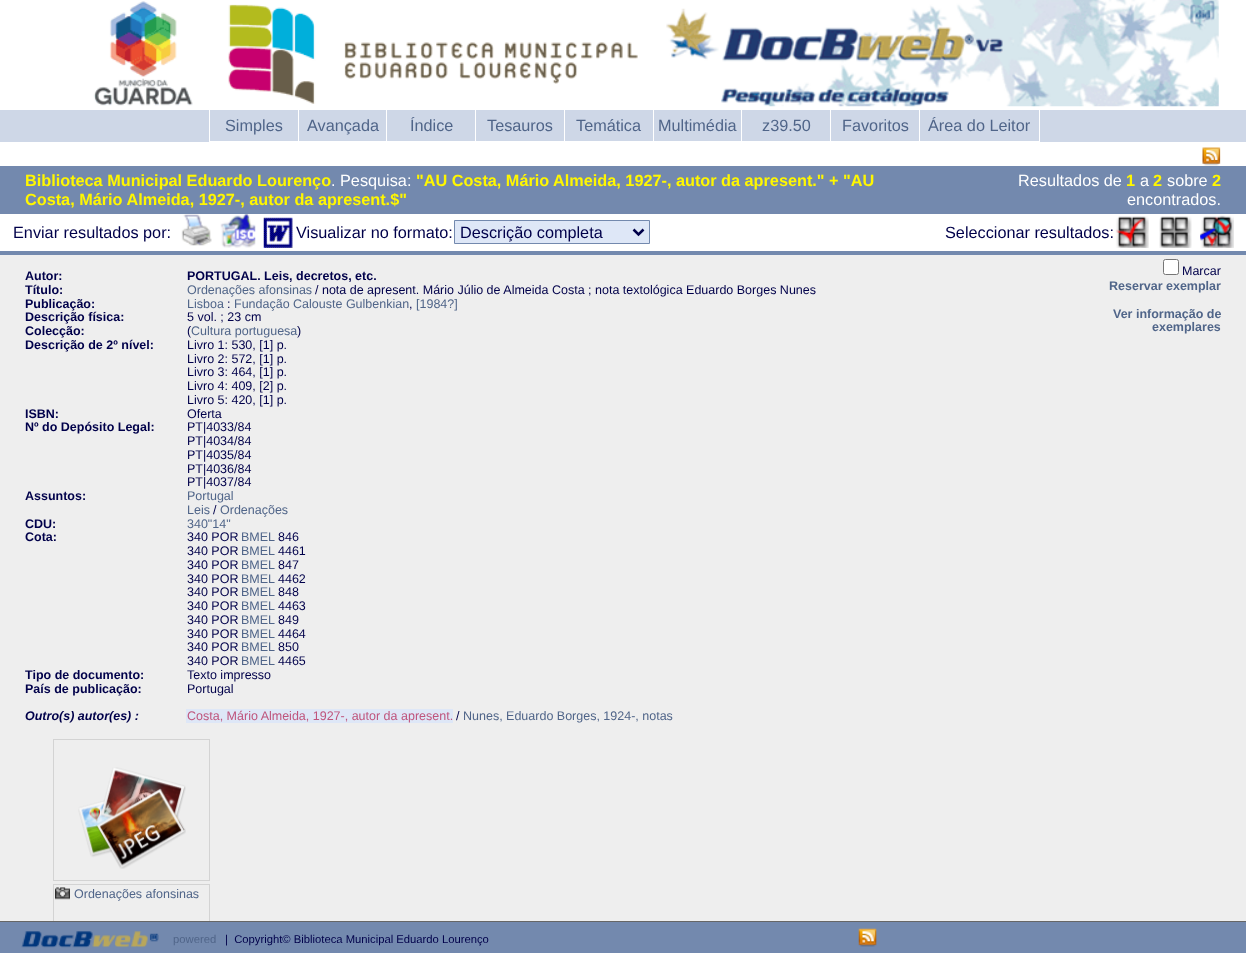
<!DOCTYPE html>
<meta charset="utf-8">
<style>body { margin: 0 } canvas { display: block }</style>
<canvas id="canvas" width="1246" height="953"></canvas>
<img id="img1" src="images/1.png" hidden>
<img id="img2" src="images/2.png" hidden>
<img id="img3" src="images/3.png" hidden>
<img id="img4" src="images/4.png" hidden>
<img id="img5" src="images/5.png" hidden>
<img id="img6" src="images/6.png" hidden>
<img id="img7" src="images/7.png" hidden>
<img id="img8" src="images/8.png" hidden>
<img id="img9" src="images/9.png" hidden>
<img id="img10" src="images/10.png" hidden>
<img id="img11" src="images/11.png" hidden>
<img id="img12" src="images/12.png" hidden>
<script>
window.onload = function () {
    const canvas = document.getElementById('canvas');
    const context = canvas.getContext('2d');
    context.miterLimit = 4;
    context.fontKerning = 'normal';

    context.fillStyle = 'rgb(255, 255, 255)';
    context.fillRect(0, 0, 1246, 953);
    context.drawImage(document.getElementById('img1'), 93, 0, 1126, 107);
    context.fillStyle = 'rgb(206, 215, 231)';
    context.fillRect(0, 110, 209, 32);
    context.fillRect(210, 110, 88, 31);
    context.fillRect(299, 110, 87, 31);
    context.fillRect(387, 110, 88, 31);
    context.fillRect(476, 110, 88, 31);
    context.fillRect(565, 110, 88, 31);
    context.fillRect(654, 110, 87, 31);
    context.fillRect(742, 110, 88, 31);
    context.fillRect(831, 110, 88, 31);
    context.fillRect(920, 110, 119, 31);
    context.fillRect(1040, 110, 206, 32);
    context.drawImage(document.getElementById('img2'), 1202, 147, 19, 19);
    context.fillStyle = 'rgb(115, 137, 174)';
    context.fillRect(0, 166, 1246, 48);
    context.drawImage(document.getElementById('img3'), 181, 214, 31, 32);
    context.drawImage(document.getElementById('img4'), 220, 214, 36, 34);
    context.drawImage(document.getElementById('img5'), 263, 217, 30, 31);
    context.fillStyle = 'rgb(222, 231, 247)';
    context.beginPath();
    context.rect(454.5, 220.5, 195, 23);
    context.fill();
    context.strokeStyle = 'rgb(115, 137, 174)';
    context.stroke();
    context.beginPath();
    context.moveTo(633.5, 229.5);
    context.lineTo(638.5, 234.5);
    context.lineTo(643.5, 229.5);
    context.strokeStyle = 'rgb(0, 0, 74)';
    context.lineWidth = 2.5;
    context.stroke();
    context.drawImage(document.getElementById('img6'), 1115, 216, 34, 32);
    context.drawImage(document.getElementById('img7'), 1159, 216, 33, 32);
    context.drawImage(document.getElementById('img8'), 1200, 215, 34, 33);
    context.fillStyle = 'rgb(115, 137, 174)';
    context.fillRect(0, 251, 1246, 4);
    context.fillStyle = 'rgb(238, 238, 238)';
    context.fillRect(0, 255, 1246, 666);
    context.fillStyle = 'rgb(222, 231, 247)';
    context.fillRect(186, 709, 267, 14);
    context.strokeStyle = 'rgb(211, 211, 211)';
    context.lineWidth = 1;
    context.strokeRect(53.5, 739.5, 156, 141);
    context.drawImage(document.getElementById('img9'), 78, 767, 108, 102);
    context.strokeRect(53.5, 884.5, 156, 48);
    context.drawImage(document.getElementById('img10'), 55, 887, 15, 13);
    context.fillStyle = 'rgb(255, 255, 255)';
    context.beginPath();
    context.roundRect(1163.5, 259.5, 15, 15, 2);
    context.fill();
    context.strokeStyle = 'rgb(118, 118, 118)';
    context.stroke();
    context.fillStyle = 'rgb(115, 137, 174)';
    context.fillRect(0, 922, 1246, 31);
    context.fillStyle = 'rgb(102, 102, 102)';
    context.fillRect(0, 921, 1246, 1);
    context.drawImage(document.getElementById('img11'), 21, 931, 138, 17);
    context.drawImage(document.getElementById('img12'), 858, 928, 19, 19);
    context.font = '16.25px Liberation Sans';
    context.fillStyle = 'rgb(80, 101, 137)';
    context.fillText('Simples', 225, 131);
    context.fillText('Avançada', 307, 131);
    context.fillText('Índice', 410, 131);
    context.fillText('Tesauros', 487, 131);
    context.fillText('Temática', 576, 131);
    context.fillText('Multimédia', 658, 131);
    context.fillText('z39.50', 762, 131);
    context.fillText('Favoritos', 842, 131);
    context.fillText('Área do Leitor', 928, 131);
    context.font = 'bold 16.25px Liberation Sans';
    context.fillStyle = 'rgb(255, 247, 0)';
    context.fillText('Biblioteca Municipal Eduardo Lourenço', 25, 186);
    context.font = '16.25px Liberation Sans';
    context.fillStyle = 'rgb(255, 255, 255)';
    context.fillText('. Pesquisa:', 331, 186);
    context.font = 'bold 16.25px Liberation Sans';
    context.fillStyle = 'rgb(255, 247, 0)';
    context.fillText('"AU Costa, Mário Almeida, 1927-, autor da apresent." + "AU', 416, 186);
    context.fillText('Costa, Mário Almeida, 1927-, autor da apresent.$"', 25, 205);
    context.font = '16.25px Liberation Sans';
    context.fillStyle = 'rgb(255, 255, 255)';
    context.fillText('Resultados de', 1018, 186);
    context.font = 'bold 16.25px Liberation Sans';
    context.fillStyle = 'rgb(255, 247, 0)';
    context.fillText('1', 1126, 186);
    context.font = '16.25px Liberation Sans';
    context.fillStyle = 'rgb(255, 255, 255)';
    context.fillText('a', 1140, 186);
    context.font = 'bold 16.25px Liberation Sans';
    context.fillStyle = 'rgb(255, 247, 0)';
    context.fillText('2', 1153, 186);
    context.font = '16.25px Liberation Sans';
    context.fillStyle = 'rgb(255, 255, 255)';
    context.fillText('sobre', 1167, 186);
    context.font = 'bold 16.25px Liberation Sans';
    context.fillStyle = 'rgb(255, 247, 0)';
    context.fillText('2', 1212, 186);
    context.font = '16.25px Liberation Sans';
    context.fillStyle = 'rgb(255, 255, 255)';
    context.fillText('encontrados.', 1127, 205);
    context.fillStyle = 'rgb(0, 0, 74)';
    context.fillText('Enviar resultados por:', 13, 238);
    context.fillText('Visualizar no formato:', 296, 238);
    context.fillText('Descrição completa', 460, 238);
    context.fillText('Seleccionar resultados:', 945, 238);
    context.font = 'bold 12.5px Liberation Sans';
    context.fillText('Autor:', 25, 280);
    context.fillText('PORTUGAL. Leis, decretos, etc.', 187, 280);
    context.fillText('Título:', 25, 294);
    context.font = '12.5px Liberation Sans';
    context.fillStyle = 'rgb(80, 101, 137)';
    context.fillText('Ordenações afonsinas', 187, 294);
    context.fillStyle = 'rgb(0, 0, 74)';
    context.fillText('/ nota de apresent. Mário Júlio de Almeida Costa ; nota textológica Eduardo Borges Nunes', 315, 294);
    context.font = 'bold 12.5px Liberation Sans';
    context.fillText('Publicação:', 25, 308);
    context.font = '12.5px Liberation Sans';
    context.fillStyle = 'rgb(80, 101, 137)';
    context.fillText('Lisboa', 187, 308);
    context.fillStyle = 'rgb(0, 0, 74)';
    context.fillText(':', 227, 308);
    context.fillStyle = 'rgb(80, 101, 137)';
    context.fillText('Fundação Calouste Gulbenkian', 234, 308);
    context.fillStyle = 'rgb(0, 0, 74)';
    context.fillText(',', 409, 308);
    context.fillStyle = 'rgb(80, 101, 137)';
    context.fillText('[1984?]', 416, 308);
    context.font = 'bold 12.5px Liberation Sans';
    context.fillStyle = 'rgb(0, 0, 74)';
    context.fillText('Descrição física:', 25, 321);
    context.font = '12.5px Liberation Sans';
    context.fillText('5 vol. ; 23 cm', 187, 321);
    context.font = 'bold 12.5px Liberation Sans';
    context.fillText('Colecção:', 25, 335);
    context.font = '12.5px Liberation Sans';
    context.fillText('(', 187, 335);
    context.fillStyle = 'rgb(80, 101, 137)';
    context.fillText('Cultura portuguesa', 191, 335);
    context.fillStyle = 'rgb(0, 0, 74)';
    context.fillText(')', 297, 335);
    context.font = 'bold 12.5px Liberation Sans';
    context.fillText('Descrição de 2º nível:', 25, 349);
    context.font = '12.5px Liberation Sans';
    context.fillText('Livro 1: 530, [1] p.', 187, 349);
    context.fillText('Livro 2: 572, [1] p.', 187, 363);
    context.fillText('Livro 3: 464, [1] p.', 187, 376);
    context.fillText('Livro 4: 409, [2] p.', 187, 390);
    context.fillText('Livro 5: 420, [1] p.', 187, 404);
    context.font = 'bold 12.5px Liberation Sans';
    context.fillText('ISBN:', 25, 418);
    context.font = '12.5px Liberation Sans';
    context.fillText('Oferta', 187, 418);
    context.font = 'bold 12.5px Liberation Sans';
    context.fillText('Nº do Depósito Legal:', 25, 431);
    context.font = '12.5px Liberation Sans';
    context.fillText('PT|4033/84', 187, 431);
    context.fillText('PT|4034/84', 187, 445);
    context.fillText('PT|4035/84', 187, 459);
    context.fillText('PT|4036/84', 187, 473);
    context.fillText('PT|4037/84', 187, 486);
    context.font = 'bold 12.5px Liberation Sans';
    context.fillText('Assuntos:', 25, 500);
    context.font = '12.5px Liberation Sans';
    context.fillStyle = 'rgb(80, 101, 137)';
    context.fillText('Portugal', 187, 500);
    context.fillText('Leis', 187, 514);
    context.fillStyle = 'rgb(0, 0, 74)';
    context.fillText('/', 213, 514);
    context.fillStyle = 'rgb(80, 101, 137)';
    context.fillText('Ordenações', 220, 514);
    context.font = 'bold 12.5px Liberation Sans';
    context.fillStyle = 'rgb(0, 0, 74)';
    context.fillText('CDU:', 25, 528);
    context.font = '12.5px Liberation Sans';
    context.fillStyle = 'rgb(80, 101, 137)';
    context.fillText('340"14"', 187, 528);
    context.font = 'bold 12.5px Liberation Sans';
    context.fillStyle = 'rgb(0, 0, 74)';
    context.fillText('Cota:', 25, 541);
    context.font = '12.5px Liberation Sans';
    context.fillText('340 POR', 187, 541);
    context.fillStyle = 'rgb(80, 101, 137)';
    context.fillText('BMEL', 241, 541);
    context.fillStyle = 'rgb(0, 0, 74)';
    context.fillText('846', 278, 541);
    context.fillText('340 POR', 187, 555);
    context.fillStyle = 'rgb(80, 101, 137)';
    context.fillText('BMEL', 241, 555);
    context.fillStyle = 'rgb(0, 0, 74)';
    context.fillText('4461', 278, 555);
    context.fillText('340 POR', 187, 569);
    context.fillStyle = 'rgb(80, 101, 137)';
    context.fillText('BMEL', 241, 569);
    context.fillStyle = 'rgb(0, 0, 74)';
    context.fillText('847', 278, 569);
    context.fillText('340 POR', 187, 583);
    context.fillStyle = 'rgb(80, 101, 137)';
    context.fillText('BMEL', 241, 583);
    context.fillStyle = 'rgb(0, 0, 74)';
    context.fillText('4462', 278, 583);
    context.fillText('340 POR', 187, 596);
    context.fillStyle = 'rgb(80, 101, 137)';
    context.fillText('BMEL', 241, 596);
    context.fillStyle = 'rgb(0, 0, 74)';
    context.fillText('848', 278, 596);
    context.fillText('340 POR', 187, 610);
    context.fillStyle = 'rgb(80, 101, 137)';
    context.fillText('BMEL', 241, 610);
    context.fillStyle = 'rgb(0, 0, 74)';
    context.fillText('4463', 278, 610);
    context.fillText('340 POR', 187, 624);
    context.fillStyle = 'rgb(80, 101, 137)';
    context.fillText('BMEL', 241, 624);
    context.fillStyle = 'rgb(0, 0, 74)';
    context.fillText('849', 278, 624);
    context.fillText('340 POR', 187, 638);
    context.fillStyle = 'rgb(80, 101, 137)';
    context.fillText('BMEL', 241, 638);
    context.fillStyle = 'rgb(0, 0, 74)';
    context.fillText('4464', 278, 638);
    context.fillText('340 POR', 187, 651);
    context.fillStyle = 'rgb(80, 101, 137)';
    context.fillText('BMEL', 241, 651);
    context.fillStyle = 'rgb(0, 0, 74)';
    context.fillText('850', 278, 651);
    context.fillText('340 POR', 187, 665);
    context.fillStyle = 'rgb(80, 101, 137)';
    context.fillText('BMEL', 241, 665);
    context.fillStyle = 'rgb(0, 0, 74)';
    context.fillText('4465', 278, 665);
    context.font = 'bold 12.5px Liberation Sans';
    context.fillText('Tipo de documento:', 25, 679);
    context.font = '12.5px Liberation Sans';
    context.fillText('Texto impresso', 187, 679);
    context.font = 'bold 12.5px Liberation Sans';
    context.fillText('País de publicação:', 25, 693);
    context.font = '12.5px Liberation Sans';
    context.fillText('Portugal', 187, 693);
    context.font = 'italic bold 12.5px Liberation Sans';
    context.fillText('Outro(s) autor(es) :', 25, 720);
    context.font = '12.5px Liberation Sans';
    context.fillStyle = 'rgb(191, 85, 125)';
    context.fillText('Costa, Mário Almeida, 1927-, autor da apresent.', 187, 720);
    context.fillStyle = 'rgb(0, 0, 74)';
    context.fillText('/', 456, 720);
    context.fillStyle = 'rgb(80, 101, 137)';
    context.fillText('Nunes, Eduardo Borges, 1924-, notas', 463, 720);
    context.fillText('Ordenações afonsinas', 74, 898);
    context.fillStyle = 'rgb(0, 0, 74)';
    context.fillText('Marcar', 1182, 275);
    context.font = 'bold 12.5px Liberation Sans';
    context.fillStyle = 'rgb(80, 101, 137)';
    context.fillText('Reservar exemplar', 1109, 290);
    context.fillText('Ver informação de', 1113, 318);
    context.fillText('exemplares', 1152, 331);
    context.font = '11.25px Liberation Sans';
    context.fillText('powered', 173, 943);
    context.fillStyle = 'rgb(0, 0, 74)';
    context.fillText('|  Copyright© Biblioteca Municipal Eduardo Lourenço', 225, 943);
};
</script>
